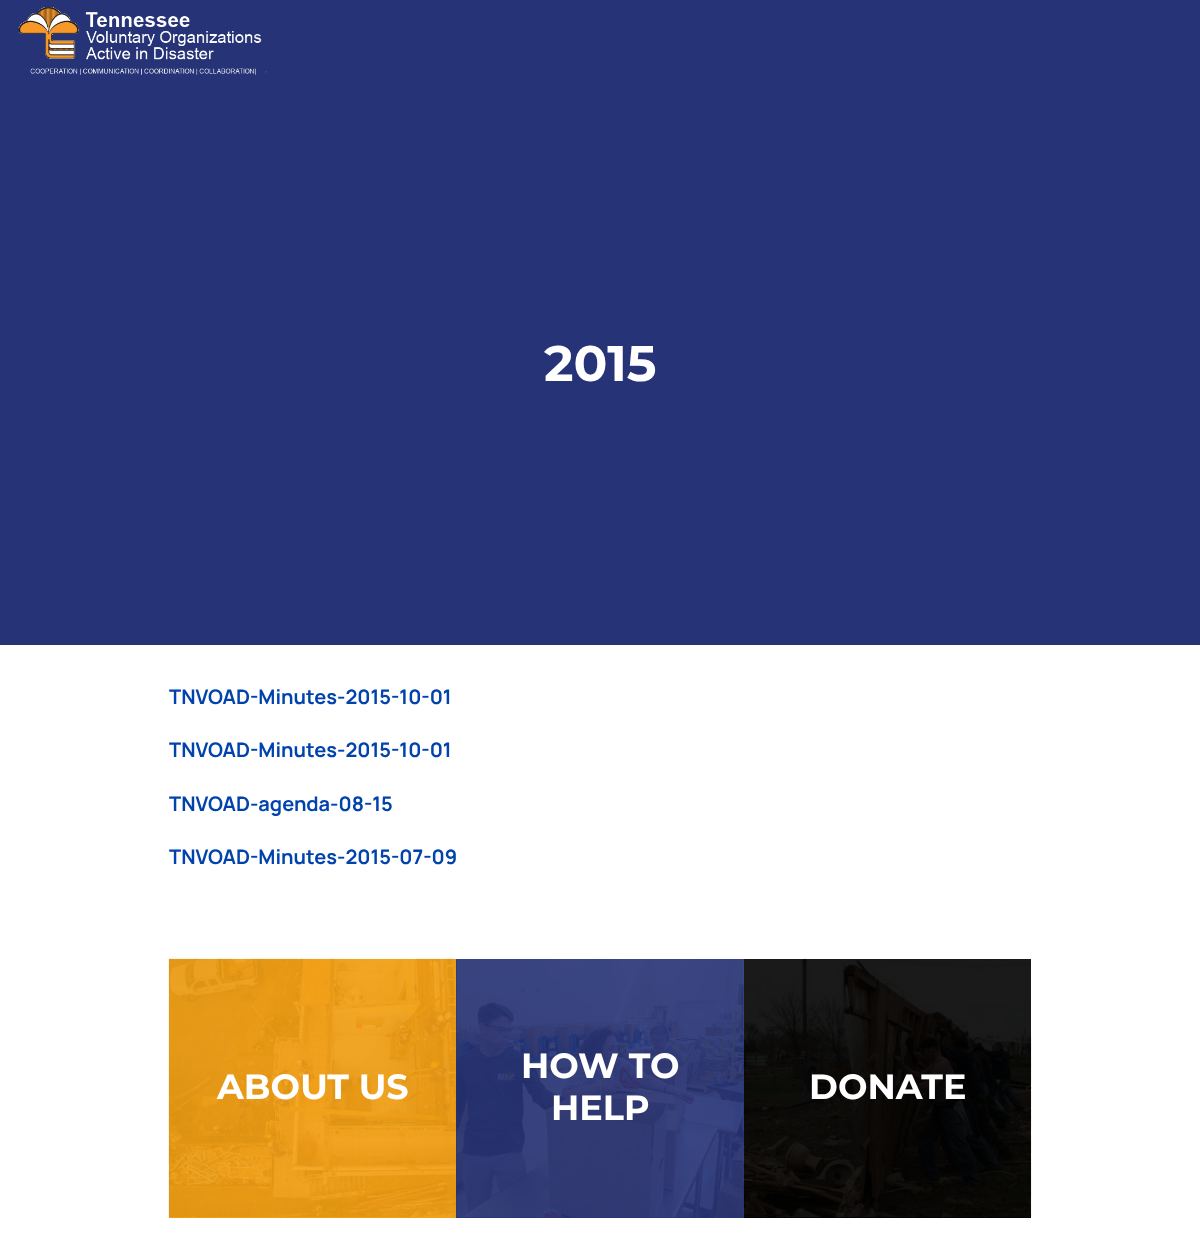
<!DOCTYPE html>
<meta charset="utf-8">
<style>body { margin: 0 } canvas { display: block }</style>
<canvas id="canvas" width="1200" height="1241"></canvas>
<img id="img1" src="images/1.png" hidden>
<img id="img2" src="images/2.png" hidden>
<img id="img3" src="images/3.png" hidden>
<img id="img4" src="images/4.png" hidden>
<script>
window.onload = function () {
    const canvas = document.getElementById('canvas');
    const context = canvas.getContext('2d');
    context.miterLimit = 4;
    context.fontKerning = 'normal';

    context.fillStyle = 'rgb(255, 255, 255)';
    context.fillRect(0, 0, 1200, 1241);
    context.fillStyle = 'rgb(38, 51, 118)';
    context.fillRect(0, 0, 1200, 645);
    context.drawImage(document.getElementById('img1'), 18, 7, 249, 68);
    context.fillStyle = 'rgb(245, 161, 18)';
    context.fillRect(169, 1217, 287, 1);
    context.drawImage(document.getElementById('img2'), 168, 958, 288, 260);
    context.fillStyle = 'rgb(38, 51, 118)';
    context.fillRect(456, 959, 288, 259);
    context.drawImage(document.getElementById('img3'), 456, 959, 288, 259);
    context.fillStyle = 'rgba(38, 51, 118, 0.9)';
    context.fillRect(456, 959, 288, 259);
    context.fillStyle = 'rgb(0, 0, 0)';
    context.fillRect(744, 1217, 287, 1);
    context.drawImage(document.getElementById('img4'), 743, 958, 289, 260);
    context.font = 'bold 50px Montserrat';
    context.fillStyle = 'rgb(255, 255, 255)';
    context.fillText('2015', 544, 381);
    context.font = 'bold 20px Manrope';
    context.fillStyle = 'rgb(0, 67, 173)';
    context.fillText('TNVOAD-Minutes-2015-10-01', 169, 704);
    context.fillText('TNVOAD-Minutes-2015-10-01', 169, 757);
    context.fillText('TNVOAD-agenda-08-15', 169, 811);
    context.fillText('TNVOAD-Minutes-2015-07-09', 169, 864);
    context.font = 'bold 35px Montserrat';
    context.fillStyle = 'rgb(255, 255, 255)';
    context.fillText('ABOUT US', 217, 1099);
    context.fillText('HOW TO', 521, 1078);
    context.fillText('HELP', 551, 1120);
    context.fillText('DONATE', 809, 1099);
};
</script>
